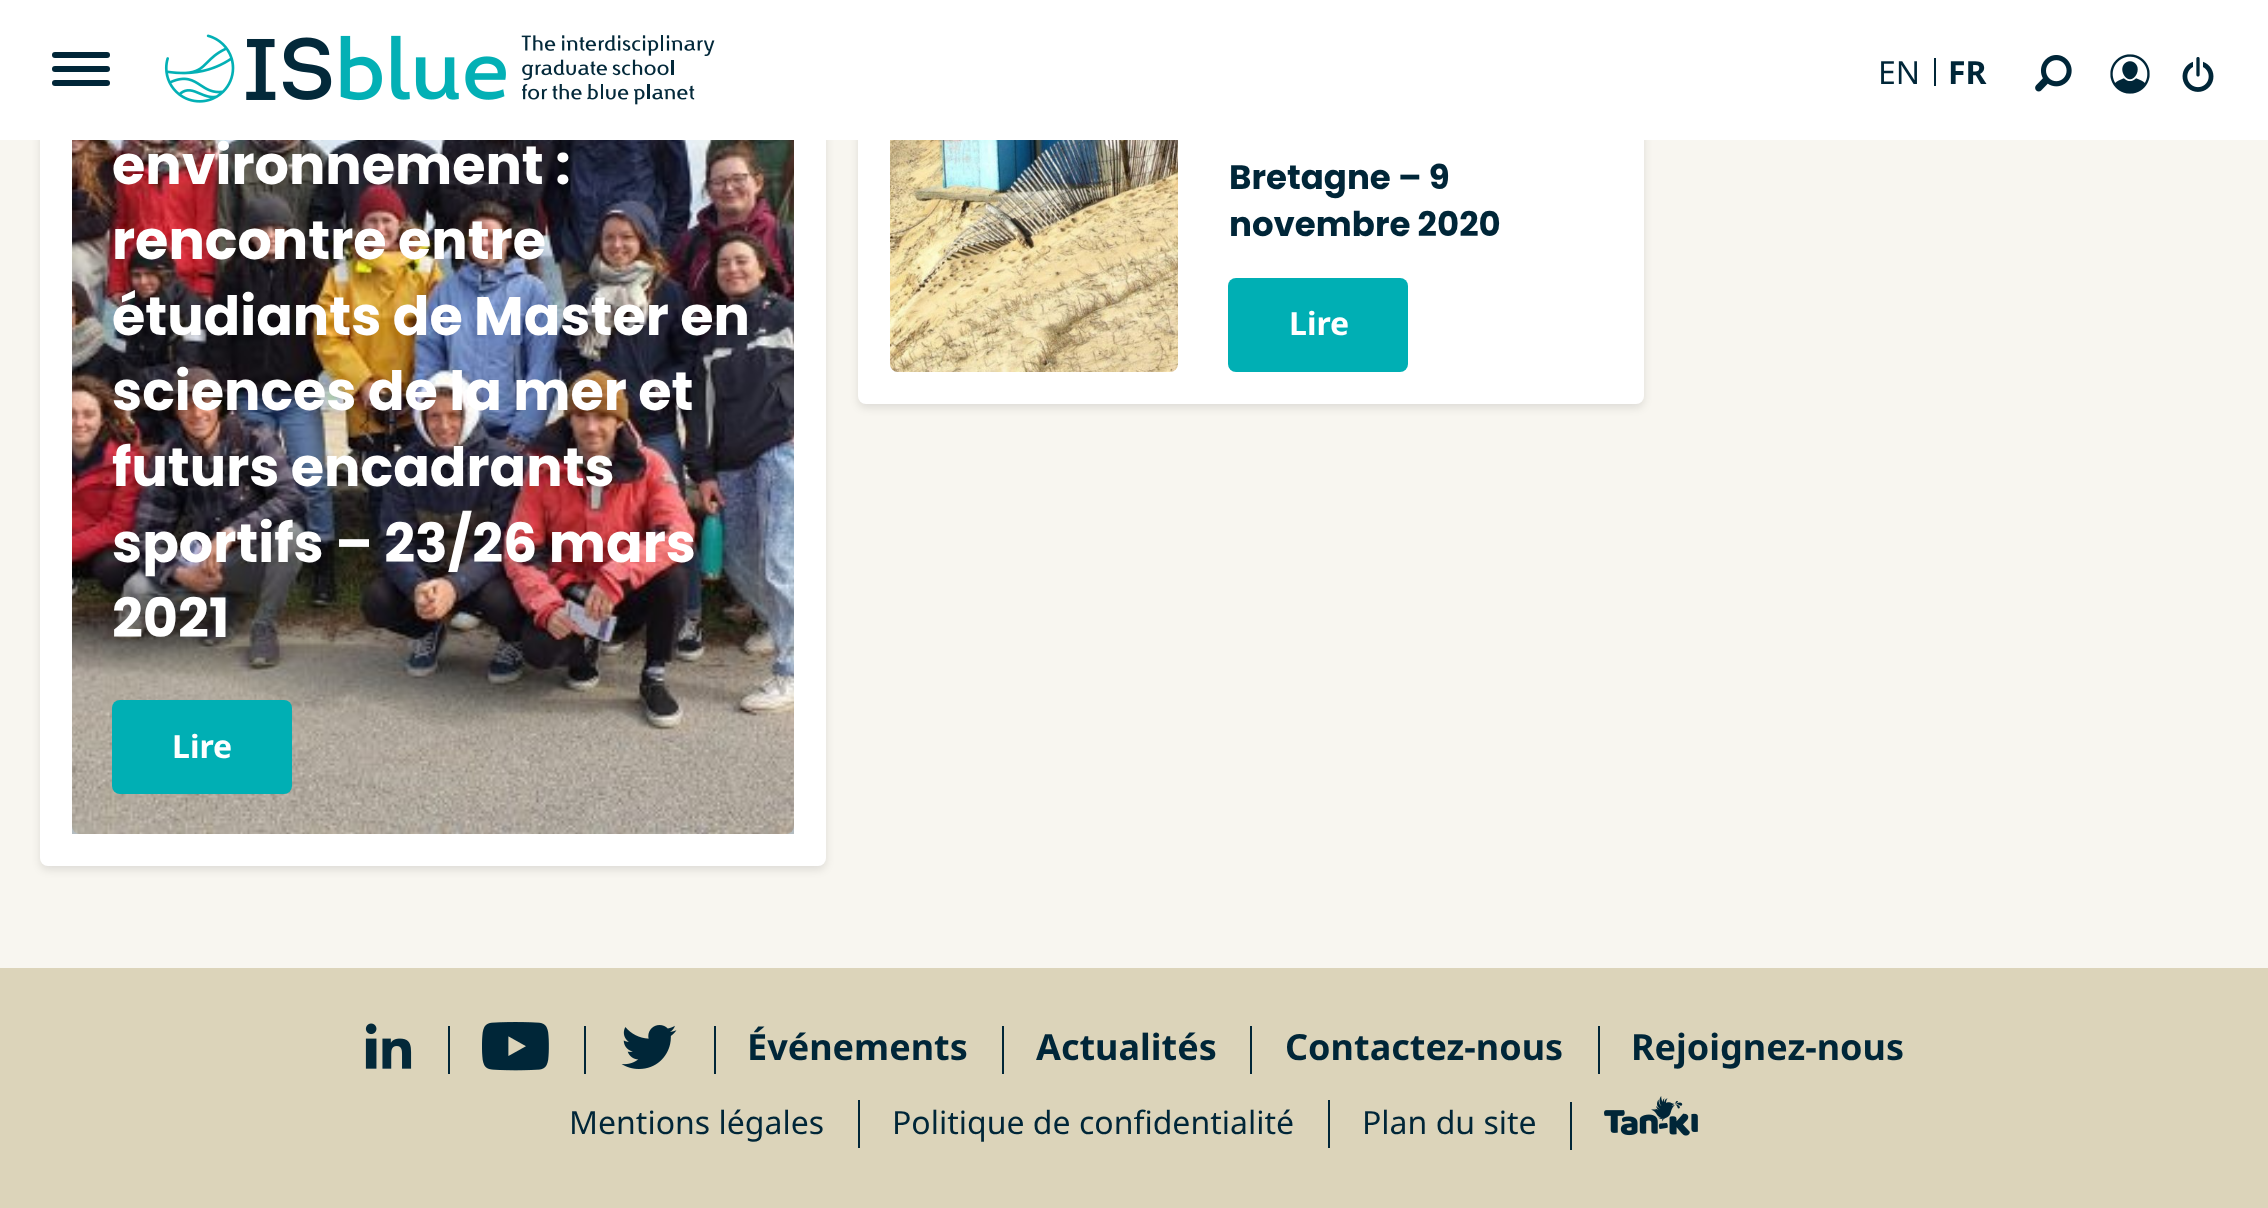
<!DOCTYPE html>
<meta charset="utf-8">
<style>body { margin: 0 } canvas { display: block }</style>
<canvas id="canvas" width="2268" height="1208"></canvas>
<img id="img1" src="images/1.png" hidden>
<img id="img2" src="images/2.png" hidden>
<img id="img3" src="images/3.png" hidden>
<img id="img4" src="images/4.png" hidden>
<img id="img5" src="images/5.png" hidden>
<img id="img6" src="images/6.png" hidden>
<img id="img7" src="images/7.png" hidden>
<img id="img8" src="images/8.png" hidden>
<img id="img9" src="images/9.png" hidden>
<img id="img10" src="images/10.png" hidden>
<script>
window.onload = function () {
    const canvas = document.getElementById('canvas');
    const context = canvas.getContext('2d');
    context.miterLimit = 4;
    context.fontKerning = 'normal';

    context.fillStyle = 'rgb(248, 246, 240)';
    context.fillRect(0, 0, 2268, 1208);
    context.fillStyle = 'rgba(0, 0, 0, 0.1)';
    context.filter = 'blur(4px)';
    context.beginPath();
    context.roundRect(40, -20, 786, 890, 8);
    context.fill();
    context.filter = 'none';
    context.fillStyle = 'rgb(255, 255, 255)';
    context.beginPath();
    context.roundRect(40, -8, 786, 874, 8);
    context.fill();
    context.fillStyle = 'rgba(0, 0, 0, 0.1)';
    context.filter = 'blur(4px)';
    context.beginPath();
    context.roundRect(858, -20, 786, 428, 8);
    context.fill();
    context.filter = 'none';
    context.fillStyle = 'rgb(255, 255, 255)';
    context.beginPath();
    context.roundRect(858, -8, 786, 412, 8);
    context.fill();
    context.fillRect(0, 0, 2268, 140);
    context.fillStyle = 'rgb(0, 38, 56)';
    context.beginPath();
    context.roundRect(52, 52, 58, 6, 3);
    context.fill();
    context.beginPath();
    context.roundRect(52, 66, 58, 6, 3);
    context.fill();
    context.beginPath();
    context.roundRect(52, 80, 58, 6, 3);
    context.fill();
    context.drawImage(document.getElementById('img1'), 164, 34, 551, 71);
    context.fillRect(1934, 58, 2, 28);
    context.drawImage(document.getElementById('img2'), 2035, 55, 37, 37);
    context.drawImage(document.getElementById('img3'), 2110, 54, 40, 40);
    context.drawImage(document.getElementById('img4'), 2182, 57, 32, 35);
    context.fillStyle = 'rgb(179, 188, 192)';
    context.fillRect(72, 826, 722, 8);
    context.drawImage(document.getElementById('img5'), 72, 140, 722, 694);
    context.fillStyle = 'rgb(0, 175, 180)';
    context.beginPath();
    context.roundRect(112, 700, 180, 94, 8);
    context.fill();
    context.drawImage(document.getElementById('img6'), 890, 140, 288, 232);
    context.beginPath();
    context.roundRect(1228, 278, 180, 94, 8);
    context.fill();
    context.fillStyle = 'rgb(220, 212, 186)';
    context.fillRect(0, 968, 2268, 240);
    context.drawImage(document.getElementById('img7'), 365, 1023, 47, 46);
    context.fillStyle = 'rgb(0, 38, 56)';
    context.fillRect(448, 1026, 2, 48);
    context.drawImage(document.getElementById('img8'), 482, 1022, 67, 49);
    context.fillRect(584, 1026, 2, 48);
    context.drawImage(document.getElementById('img9'), 621, 1025, 56, 44);
    context.fillRect(714, 1026, 2, 48);
    context.fillRect(1002, 1026, 2, 48);
    context.fillRect(1250, 1026, 2, 48);
    context.fillRect(1598, 1026, 2, 48);
    context.fillRect(858, 1100, 2, 48);
    context.fillRect(1328, 1100, 2, 48);
    context.fillRect(1570, 1102, 2, 48);
    context.drawImage(document.getElementById('img10'), 1604, 1096, 94, 40);
    context.font = '32px Noto Sans';
    context.fillText('EN', 1878, 84);
    context.font = 'bold 32px Noto Sans';
    context.fillText('FR', 1948, 84);
    context.font = 'bold 54px Poppins';
    context.fillStyle = 'rgb(255, 255, 255)';
    context.fillText('environnement :', 112, 184);
    context.fillText('rencontre entre', 112, 259);
    context.fillText('étudiants de Master en', 112, 335);
    context.fillText('sciences de la mer et', 112, 410);
    context.fillText('futurs encadrants', 112, 486);
    context.fillText('sportifs – 23/26 mars', 112, 562);
    context.fillText('2021', 112, 637);
    context.font = 'bold 32px Noto Sans';
    context.fillText('Lire', 172, 758);
    context.font = 'bold 34px Poppins';
    context.fillStyle = 'rgb(0, 38, 56)';
    context.fillText('Bretagne – 9', 1229, 189);
    context.fillText('novembre 2020', 1229, 236);
    context.font = 'bold 32px Noto Sans';
    context.fillStyle = 'rgb(255, 255, 255)';
    context.fillText('Lire', 1289, 335);
    context.font = 'bold 36px Noto Sans';
    context.fillStyle = 'rgb(0, 38, 56)';
    context.fillText('Événements', 747, 1060);
    context.fillText('Actualités', 1036, 1060);
    context.fillText('Contactez-nous', 1285, 1060);
    context.fillText('Rejoignez-nous', 1631, 1060);
    context.font = '32px Noto Sans';
    context.fillText('Mentions légales', 569, 1134);
    context.fillText('Politique de confidentialité', 892, 1134);
    context.fillText('Plan du site', 1362, 1134);
};
</script>
